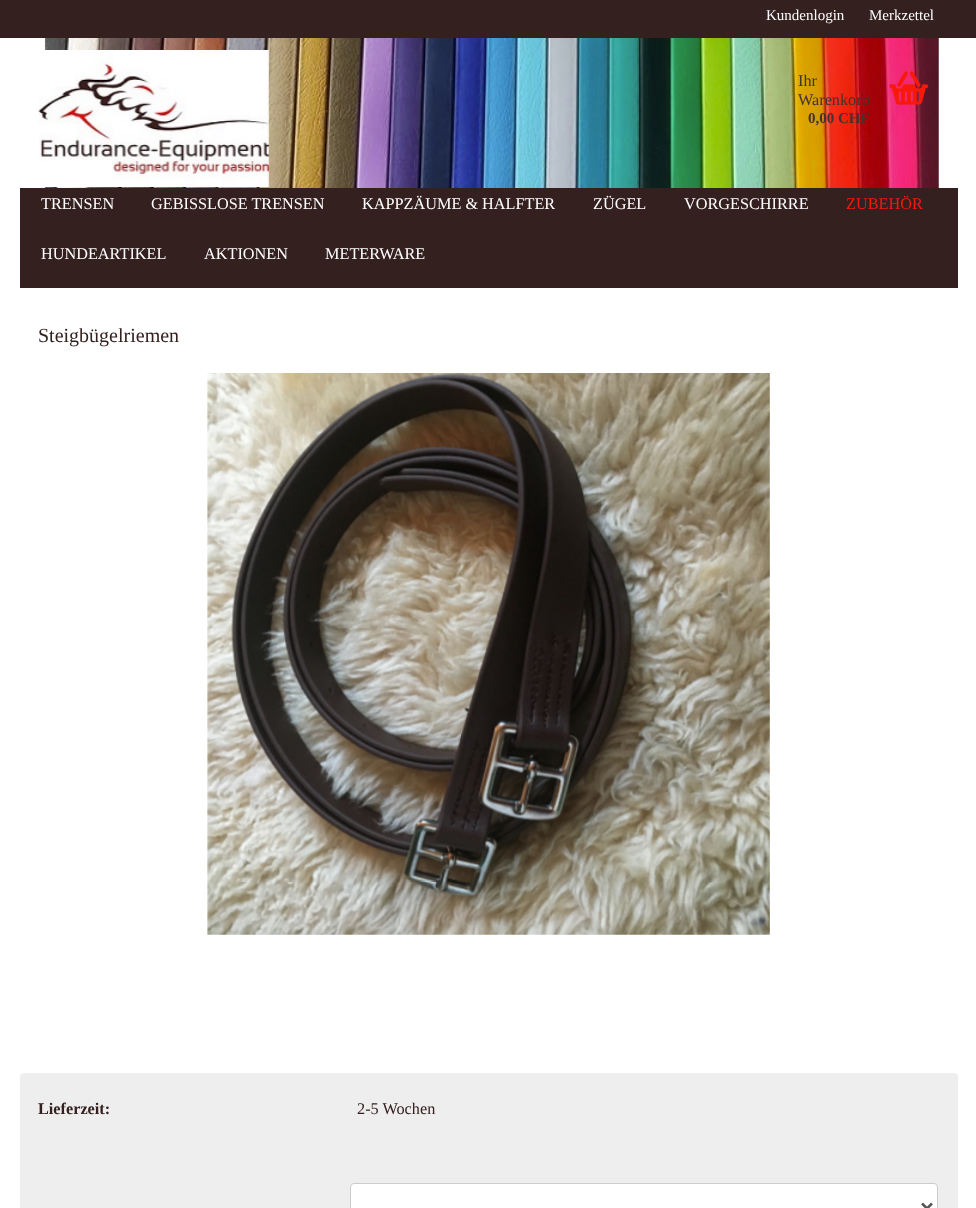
<!DOCTYPE html>
<meta charset="utf-8">
<style>body { margin: 0 } canvas { display: block }</style>
<canvas id="canvas" width="976" height="1208"></canvas>
<img id="img1" src="images/1.png" hidden>
<img id="img2" src="images/2.png" hidden>
<img id="img3" src="images/3.png" hidden>
<img id="img4" src="images/4.png" hidden>
<script>
window.onload = function () {
    const canvas = document.getElementById('canvas');
    const context = canvas.getContext('2d');
    context.miterLimit = 4;
    context.fontKerning = 'normal';

    context.fillStyle = 'rgb(255, 255, 255)';
    context.fillRect(0, 0, 976, 1208);
    context.drawImage(document.getElementById('img1'), 44, 38, 895, 150);
    context.fillStyle = 'rgb(52, 32, 31)';
    context.fillRect(0, 0, 976, 38);
    context.drawImage(document.getElementById('img2'), 38, 50, 232, 137);
    context.drawImage(document.getElementById('img3'), 889, 71, 40, 34);
    context.fillRect(20, 188, 938, 100);
    context.drawImage(document.getElementById('img4'), 207, 373, 563, 562);
    context.fillStyle = 'rgb(238, 238, 238)';
    context.beginPath();
    context.roundRect(20, 1073, 938, 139, 4);
    context.fill();
    context.fillStyle = 'rgb(255, 255, 255)';
    context.beginPath();
    context.roundRect(350.5, 1183.5, 587, 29, 3.5);
    context.fill();
    context.strokeStyle = 'rgb(204, 204, 204)';
    context.stroke();
    context.beginPath();
    context.moveTo(922, 1203.5);
    context.lineTo(927, 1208.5);
    context.lineTo(932, 1203.5);
    context.strokeStyle = 'rgb(85, 85, 85)';
    context.lineWidth = 2.5;
    context.stroke();
    context.font = '15px Liberation Serif';
    context.fillText('Kundenlogin', 766, 20);
    context.fillText('Merkzettel', 869, 20);
    context.font = '16.25px Liberation Serif';
    context.fillStyle = 'rgb(66, 50, 50)';
    context.fillText('Ihr', 798, 86);
    context.fillText('Warenkorb', 798, 105);
    context.font = 'bold 15px Liberation Serif';
    context.fillText('0,00 CHF', 808, 123);
    context.font = '16.25px Liberation Serif';
    context.fillStyle = 'rgb(255, 255, 255)';
    context.fillText('TRENSEN', 41, 209);
    context.fillText('GEBISSLOSE TRENSEN', 151, 209);
    context.fillText('KAPPZÄUME & HALFTER', 362, 209);
    context.fillText('ZÜGEL', 593, 209);
    context.fillText('VORGESCHIRRE', 684, 209);
    context.fillStyle = 'rgb(247, 25, 9)';
    context.fillText('ZUBEHÖR', 846, 209);
    context.fillStyle = 'rgb(255, 255, 255)';
    context.fillText('HUNDEARTIKEL', 41, 259);
    context.fillText('AKTIONEN', 204, 259);
    context.fillText('METERWARE', 325, 259);
    context.font = '20px Liberation Serif';
    context.fillStyle = 'rgb(52, 32, 31)';
    context.fillText('Steigbügelriemen', 38, 342);
    context.font = 'bold 16.25px Liberation Serif';
    context.fillText('Lieferzeit:', 38, 1114);
    context.font = '16.25px Liberation Serif';
    context.fillText('2-5 Wochen', 357, 1114);
};
</script>
